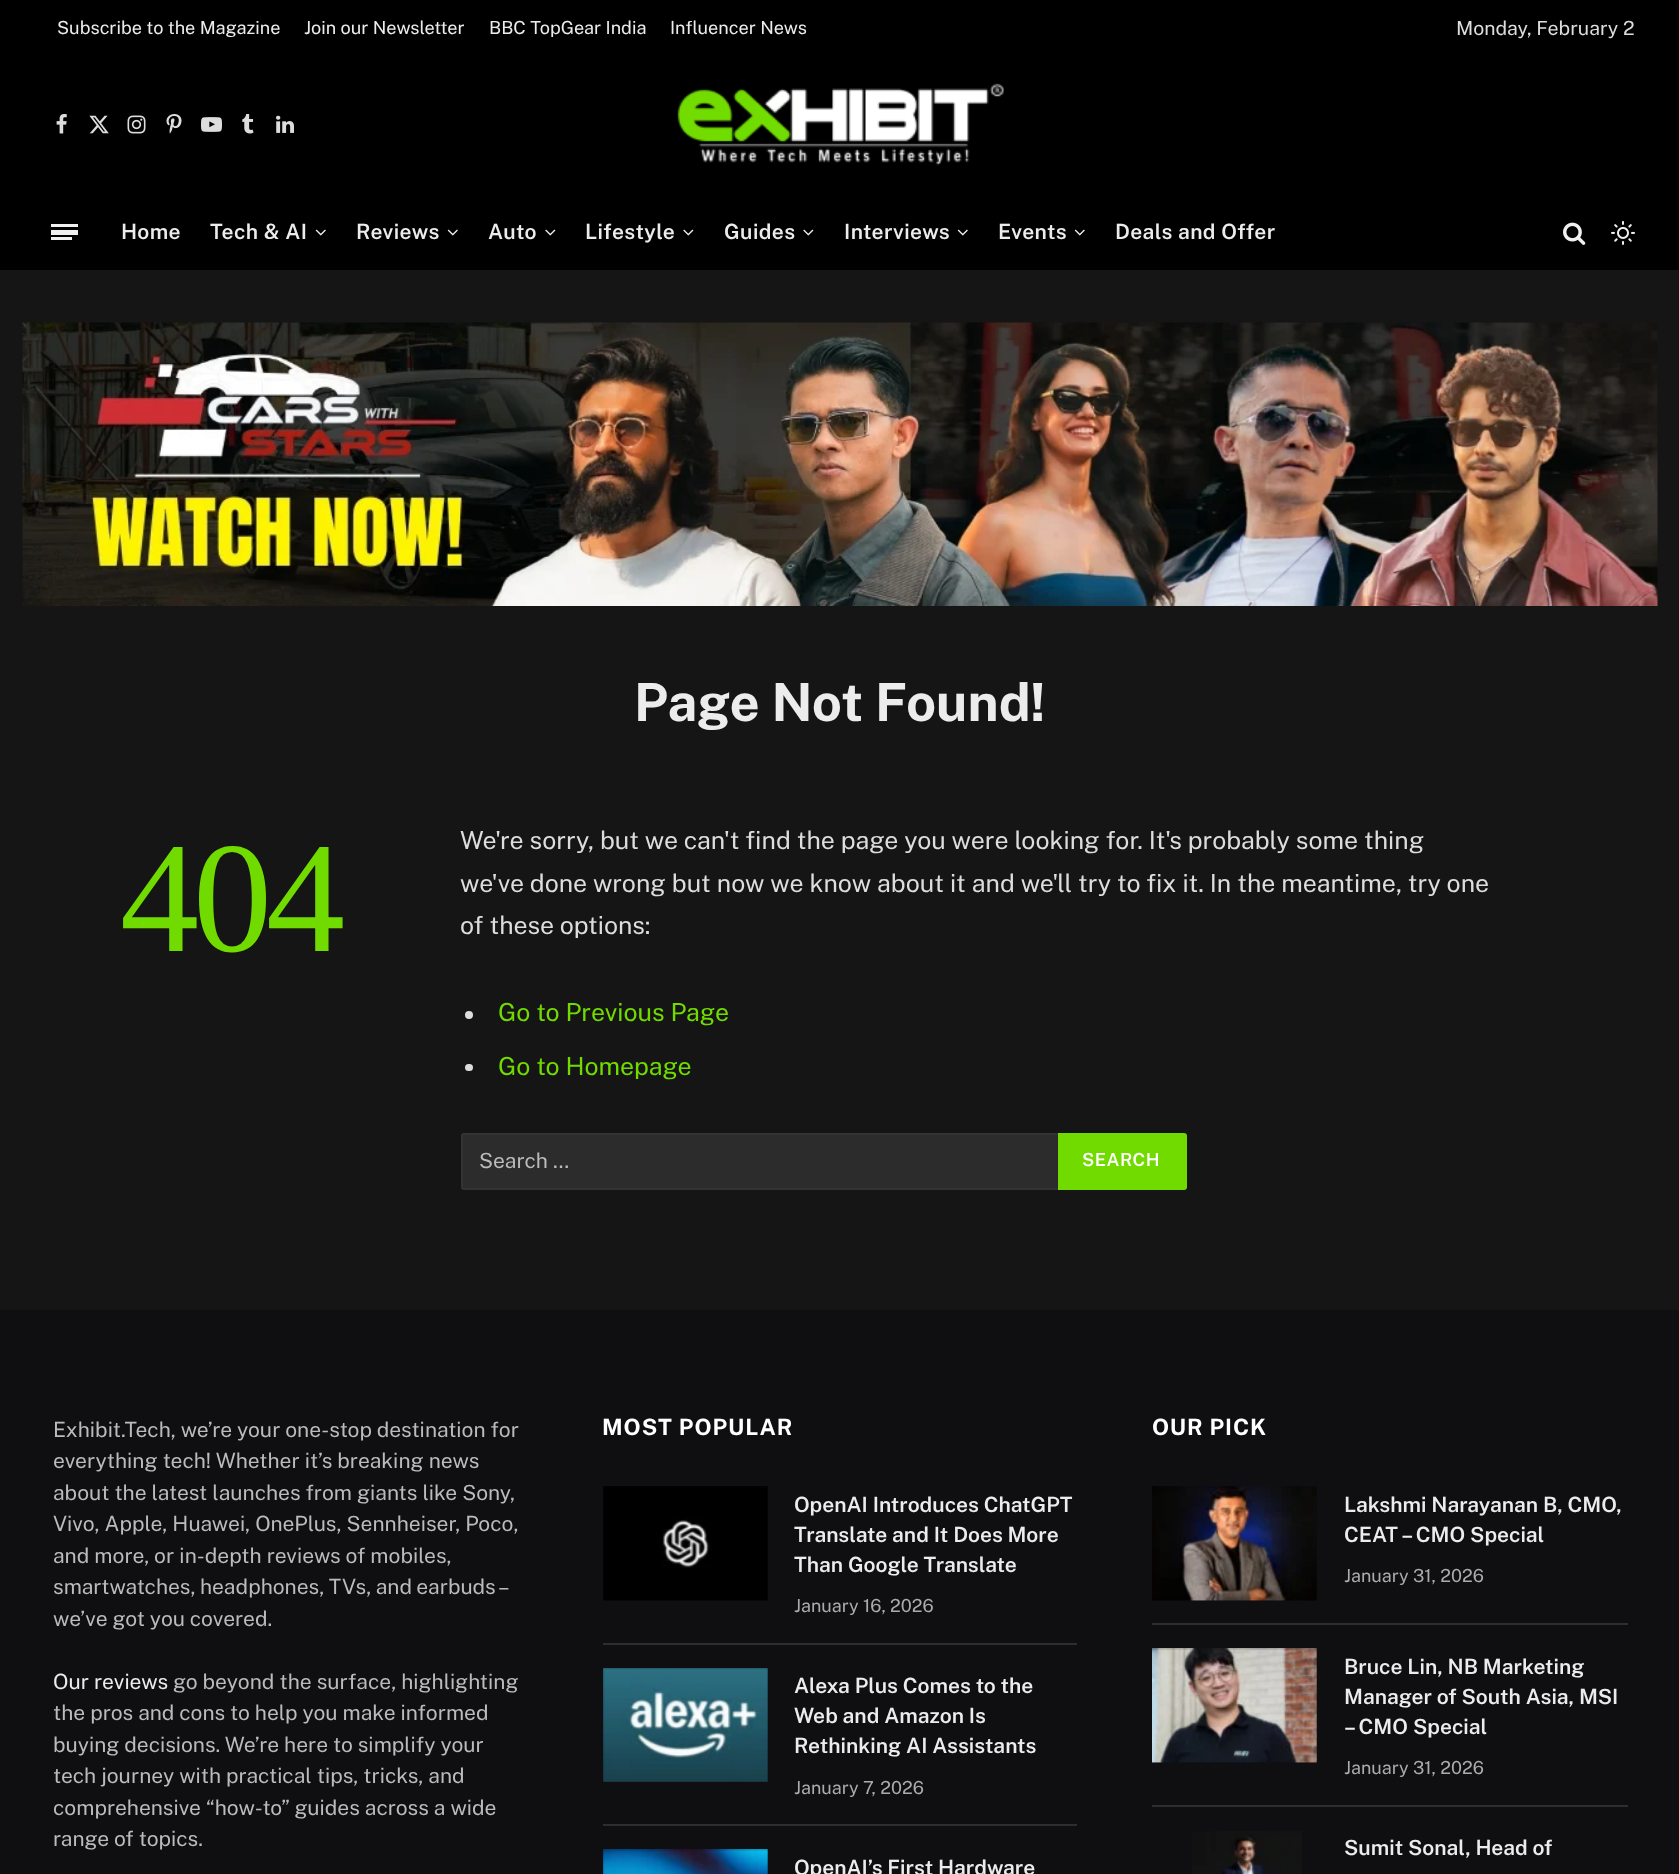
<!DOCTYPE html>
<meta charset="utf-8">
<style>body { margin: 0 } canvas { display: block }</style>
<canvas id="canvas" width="1679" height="1874"></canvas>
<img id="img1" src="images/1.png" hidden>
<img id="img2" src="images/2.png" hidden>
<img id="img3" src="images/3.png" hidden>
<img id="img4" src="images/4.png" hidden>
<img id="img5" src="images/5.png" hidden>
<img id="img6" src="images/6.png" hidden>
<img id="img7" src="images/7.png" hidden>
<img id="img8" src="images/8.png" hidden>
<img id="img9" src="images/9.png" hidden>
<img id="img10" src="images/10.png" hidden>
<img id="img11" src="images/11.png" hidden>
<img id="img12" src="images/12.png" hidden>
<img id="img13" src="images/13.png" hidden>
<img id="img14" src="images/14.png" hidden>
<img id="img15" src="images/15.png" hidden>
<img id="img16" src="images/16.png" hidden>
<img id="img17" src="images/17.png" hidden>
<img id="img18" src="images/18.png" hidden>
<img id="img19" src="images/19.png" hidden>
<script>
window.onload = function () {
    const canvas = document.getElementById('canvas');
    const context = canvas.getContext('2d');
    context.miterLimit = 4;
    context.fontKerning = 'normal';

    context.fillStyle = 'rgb(21, 21, 22)';
    context.fillRect(0, 0, 1679, 1874);
    context.fillStyle = 'rgb(0, 0, 0)';
    context.fillRect(0, 0, 1679, 270);
    context.drawImage(document.getElementById('img1'), 56, 114, 11, 20);
    context.drawImage(document.getElementById('img2'), 89, 115, 20, 19);
    context.drawImage(document.getElementById('img3'), 127, 115, 19, 19);
    context.drawImage(document.getElementById('img4'), 166, 114, 16, 20);
    context.drawImage(document.getElementById('img5'), 201, 117, 21, 15);
    context.drawImage(document.getElementById('img6'), 242, 114, 12, 20);
    context.drawImage(document.getElementById('img7'), 276, 115, 18, 18);
    context.drawImage(document.getElementById('img8'), 677, 83, 327, 83);
    context.fillStyle = 'rgb(240, 240, 240)';
    context.fillRect(51, 237, 21, 3);
    context.fillRect(51, 224, 27, 3);
    context.fillRect(51, 230, 27, 5);
    context.drawImage(document.getElementById('img9'), 315, 229, 11, 7);
    context.drawImage(document.getElementById('img9'), 447, 229, 11, 7);
    context.drawImage(document.getElementById('img10'), 545, 229, 11, 7);
    context.drawImage(document.getElementById('img10'), 683, 229, 11, 7);
    context.drawImage(document.getElementById('img10'), 803, 229, 11, 7);
    context.drawImage(document.getElementById('img9'), 957, 229, 11, 7);
    context.drawImage(document.getElementById('img9'), 1074, 229, 11, 7);
    context.drawImage(document.getElementById('img11'), 1563, 222, 23, 23);
    context.drawImage(document.getElementById('img12'), 1611, 221, 24, 24);
    context.drawImage(document.getElementById('img13'), 22, 322, 1636, 284);
    context.fillStyle = 'rgb(221, 221, 221)';
    context.beginPath();
    context.arc(469, 1015, 4, 0, 2 * Math.PI);
    context.fill();
    context.beginPath();
    context.roundRect(465, 1064, 8, 7, 3.5);
    context.fill();
    context.fillStyle = 'rgb(44, 44, 45)';
    context.beginPath();
    context.roundRect(462, 1134, 598, 55, 2);
    context.fill();
    context.strokeStyle = 'rgb(51, 51, 51)';
    context.lineWidth = 2;
    context.stroke();
    context.fillStyle = 'rgb(113, 219, 0)';
    context.beginPath();
    context.roundRect(1058, 1133, 129, 57, [0, 3, 3, 0]);
    context.fill();
    context.fillStyle = 'rgb(15, 15, 17)';
    context.fillRect(0, 1310, 1679, 564);
    context.drawImage(document.getElementById('img14'), 603, 1486, 165, 115);
    context.fillStyle = 'rgb(46, 46, 48)';
    context.fillRect(603, 1643, 474, 2);
    context.drawImage(document.getElementById('img15'), 603, 1668, 165, 114);
    context.fillRect(603, 1824, 474, 2);
    context.drawImage(document.getElementById('img16'), 603, 1849, 165, 25);
    context.drawImage(document.getElementById('img17'), 1152, 1486, 165, 115);
    context.fillRect(1152, 1623, 476, 2);
    context.drawImage(document.getElementById('img18'), 1152, 1648, 165, 115);
    context.fillRect(1152, 1805, 476, 2);
    context.drawImage(document.getElementById('img19'), 1192, 1831, 110, 43);
    context.font = '18.1px Public Sans';
    context.fillStyle = 'rgb(236, 236, 236)';
    context.fillText('Subscribe to the Magazine', 57, 34);
    context.fillText('Join our Newsletter', 304, 34);
    context.fillText('BBC TopGear India', 489, 34);
    context.fillText('Influencer News', 670, 34);
    context.font = '19.5px Public Sans';
    context.fillStyle = 'rgb(221, 221, 221)';
    context.fillText('Monday, February 2', 1456, 35);
    context.letterSpacing = '0.4px';
    context.font = '600 21px Public Sans';
    context.fillStyle = 'rgb(236, 236, 236)';
    context.fillText('Home', 121, 239);
    context.fillText('Tech & AI', 210, 239);
    context.fillText('Reviews', 356, 239);
    context.fillText('Auto', 488, 239);
    context.fillText('Lifestyle', 585, 239);
    context.fillText('Guides', 724, 239);
    context.fillText('Interviews', 844, 239);
    context.fillText('Events', 998, 239);
    context.fillText('Deals and Offer', 1115, 239);
    context.letterSpacing = '0px';
    context.font = 'bold 52.5px Public Sans';
    context.fillText('Page Not Found!', 634, 721);
    context.letterSpacing = '-6px';
    context.font = '158px Liberation Serif';
    context.fillStyle = 'rgb(113, 219, 0)';
    context.fillText('404', 120, 951);
    context.letterSpacing = '0px';
    context.font = '24.9px Public Sans';
    context.fillStyle = 'rgb(221, 221, 221)';
    context.fillText('We\'re sorry, but we can\'t find the page you were looking for. It\'s probably some thing', 460, 849);
    context.fillText('we\'ve done wrong but now we know about it and we\'ll try to fix it. In the meantime, try one', 460, 892);
    context.fillText('of these options:', 460, 934);
    context.fillStyle = 'rgb(113, 219, 0)';
    context.fillText('Go to Previous Page', 498, 1021);
    context.fillText('Go to Homepage', 498, 1075);
    context.font = '21px Public Sans';
    context.fillStyle = 'rgb(187, 187, 187)';
    context.fillText('Search …', 479, 1168);
    context.letterSpacing = '0.5px';
    context.font = '600 18px Public Sans';
    context.fillStyle = 'rgb(255, 255, 255)';
    context.fillText('SEARCH', 1082, 1166);
    context.letterSpacing = '0px';
    context.font = '21px Public Sans';
    context.fillStyle = 'rgb(187, 187, 187)';
    context.fillText('Exhibit.Tech, we’re your one-stop destination for', 53, 1437);
    context.fillText('everything tech! Whether it’s breaking news', 53, 1468);
    context.fillText('about the latest launches from giants like Sony,', 53, 1500);
    context.fillText('Vivo, Apple, Huawei, OnePlus, Sennheiser, Poco,', 53, 1531);
    context.fillText('and more, or in-depth reviews of mobiles,', 53, 1563);
    context.wordSpacing = '-0.5px';
    context.fillText('smartwatches, headphones, TVs, and earbuds –', 53, 1594);
    context.wordSpacing = '0px';
    context.fillText('we’ve got you covered.', 53, 1626);
    context.fillStyle = 'rgb(236, 236, 236)';
    context.fillText('Our reviews', 53, 1689);
    context.fillStyle = 'rgb(187, 187, 187)';
    context.fillText('go beyond the surface, highlighting', 173, 1689);
    context.fillText('the pros and cons to help you make informed', 53, 1720);
    context.fillText('buying decisions. We’re here to simplify your', 53, 1752);
    context.fillText('tech journey with practical tips, tricks, and', 53, 1783);
    context.fillText('comprehensive “how-to” guides across a wide', 53, 1815);
    context.fillText('range of topics.', 53, 1846);
    context.letterSpacing = '0.9px';
    context.font = 'bold 22.5px Public Sans';
    context.fillStyle = 'rgb(255, 255, 255)';
    context.fillText('MOST POPULAR', 602, 1435);
    context.letterSpacing = '0px';
    context.font = '600 21px Public Sans';
    context.fillStyle = 'rgb(236, 236, 236)';
    context.fillText('OpenAI Introduces ChatGPT', 794, 1512);
    context.fillText('Translate and It Does More', 794, 1542);
    context.fillText('Than Google Translate', 794, 1572);
    context.font = '18px Public Sans';
    context.fillStyle = 'rgb(171, 171, 172)';
    context.fillText('January 16, 2026', 794, 1612);
    context.font = '600 21px Public Sans';
    context.fillStyle = 'rgb(236, 236, 236)';
    context.fillText('Alexa Plus Comes to the', 794, 1693);
    context.fillText('Web and Amazon Is', 794, 1723);
    context.fillText('Rethinking AI Assistants', 794, 1753);
    context.font = '18px Public Sans';
    context.fillStyle = 'rgb(171, 171, 172)';
    context.fillText('January 7, 2026', 794, 1794);
    context.font = '600 21px Public Sans';
    context.fillStyle = 'rgb(236, 236, 236)';
    context.fillText('OpenAI’s First Hardware', 794, 1875);
    context.letterSpacing = '0.9px';
    context.font = 'bold 22.5px Public Sans';
    context.fillStyle = 'rgb(255, 255, 255)';
    context.fillText('OUR PICK', 1152, 1435);
    context.letterSpacing = '0px';
    context.font = '600 21px Public Sans';
    context.fillStyle = 'rgb(236, 236, 236)';
    context.fillText('Lakshmi Narayanan B, CMO,', 1344, 1512);
    context.fillText('CEAT – CMO Special', 1344, 1542);
    context.font = '18px Public Sans';
    context.fillStyle = 'rgb(171, 171, 172)';
    context.fillText('January 31, 2026', 1344, 1582);
    context.font = '600 21px Public Sans';
    context.fillStyle = 'rgb(236, 236, 236)';
    context.fillText('Bruce Lin, NB Marketing', 1344, 1674);
    context.fillText('Manager of South Asia, MSI', 1344, 1704);
    context.fillText('– CMO Special', 1344, 1734);
    context.font = '18px Public Sans';
    context.fillStyle = 'rgb(171, 171, 172)';
    context.fillText('January 31, 2026', 1344, 1774);
    context.font = '600 21px Public Sans';
    context.fillStyle = 'rgb(236, 236, 236)';
    context.fillText('Sumit Sonal, Head of', 1344, 1855);
};
</script>
